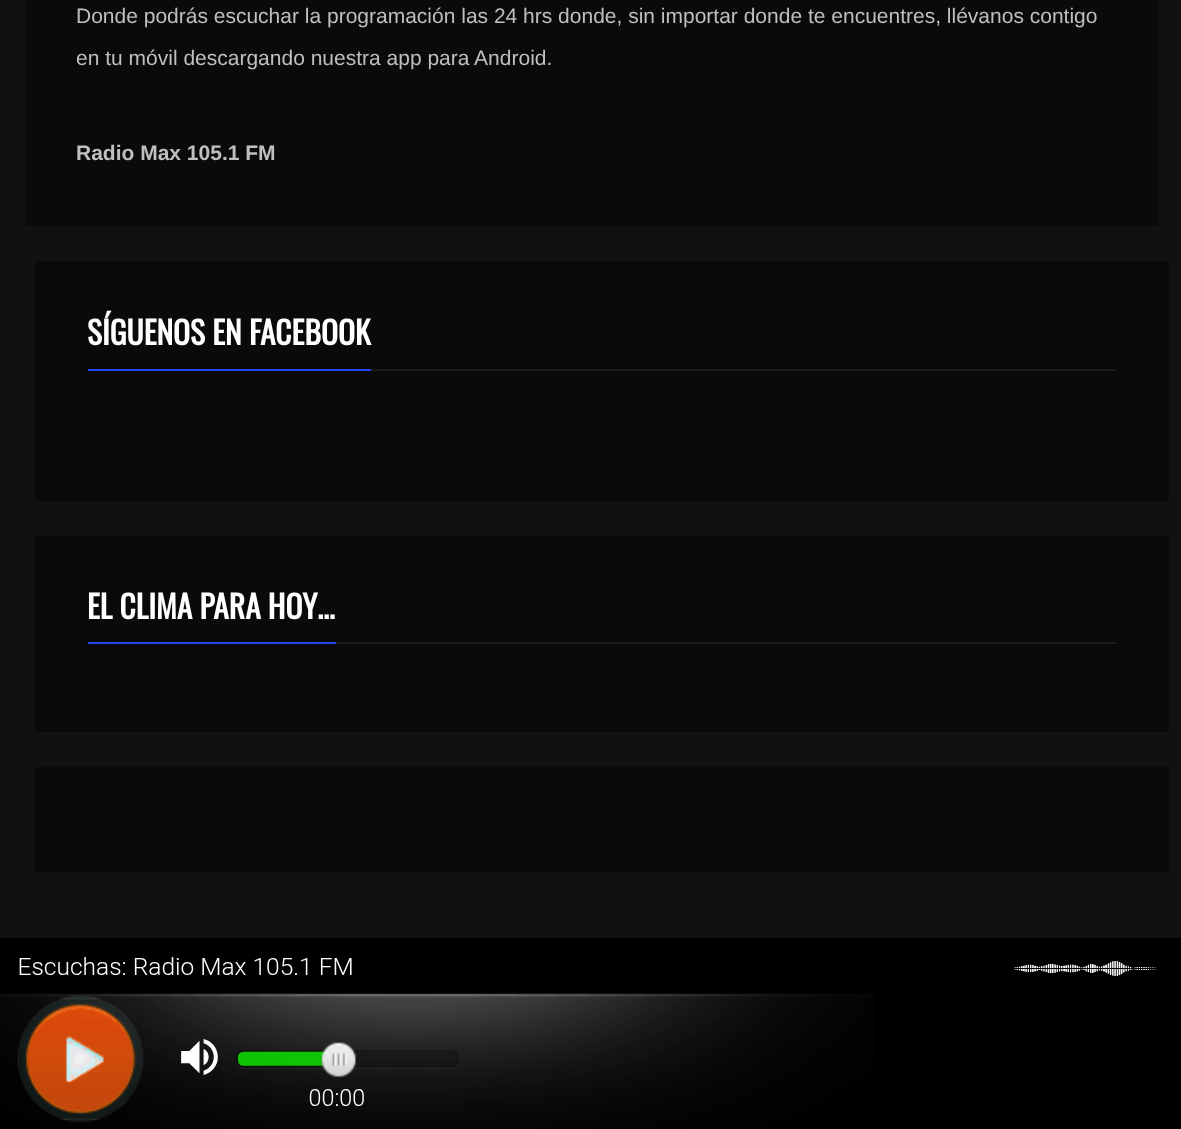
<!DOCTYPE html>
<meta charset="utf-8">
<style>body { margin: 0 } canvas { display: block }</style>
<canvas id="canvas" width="1181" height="1129"></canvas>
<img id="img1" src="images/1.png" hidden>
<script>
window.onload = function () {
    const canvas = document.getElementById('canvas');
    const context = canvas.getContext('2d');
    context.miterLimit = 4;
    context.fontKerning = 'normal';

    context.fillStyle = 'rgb(17, 17, 17)';
    context.fillRect(0, 0, 1181, 1129);
    context.fillStyle = 'rgb(10, 10, 10)';
    context.beginPath();
    context.roundRect(25, -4, 1134, 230, 4);
    context.fill();
    context.beginPath();
    context.roundRect(35, 261, 1134, 240, 4);
    context.fill();
    context.fillStyle = 'rgb(37, 70, 234)';
    context.fillRect(88, 369, 283, 2);
    context.fillStyle = 'rgb(26, 26, 26)';
    context.fillRect(371, 369, 746, 2);
    context.fillStyle = 'rgb(10, 10, 10)';
    context.beginPath();
    context.roundRect(35, 536, 1134, 196, 4);
    context.fill();
    context.fillStyle = 'rgb(37, 70, 234)';
    context.fillRect(88, 642, 248, 2);
    context.fillStyle = 'rgb(26, 26, 26)';
    context.fillRect(336, 642, 781, 2);
    context.fillStyle = 'rgb(10, 10, 10)';
    context.beginPath();
    context.roundRect(35, 767, 1134, 105, 4);
    context.fill();
    context.drawImage(document.getElementById('img1'), 0, 938, 1181, 191);
    context.font = '21px Liberation Sans';
    context.fillStyle = 'rgb(191, 191, 191)';
    context.fillText('Donde podrás escuchar la programación las 24 hrs donde, sin importar donde te encuentres, llévanos contigo', 76, 23);
    context.fillText('en tu móvil descargando nuestra app para Android.', 76, 65);
    context.font = 'bold 21px Liberation Sans';
    context.fillText('Radio Max 105.1 FM', 76, 160);
    context.font = 'bold 31.5px Oswald';
    context.fillStyle = 'rgb(255, 255, 255)';
    context.fillText('SÍGUENOS EN FACEBOOK', 87, 345);
    context.fillText('EL CLIMA PARA HOY…', 87, 619);
};
</script>
